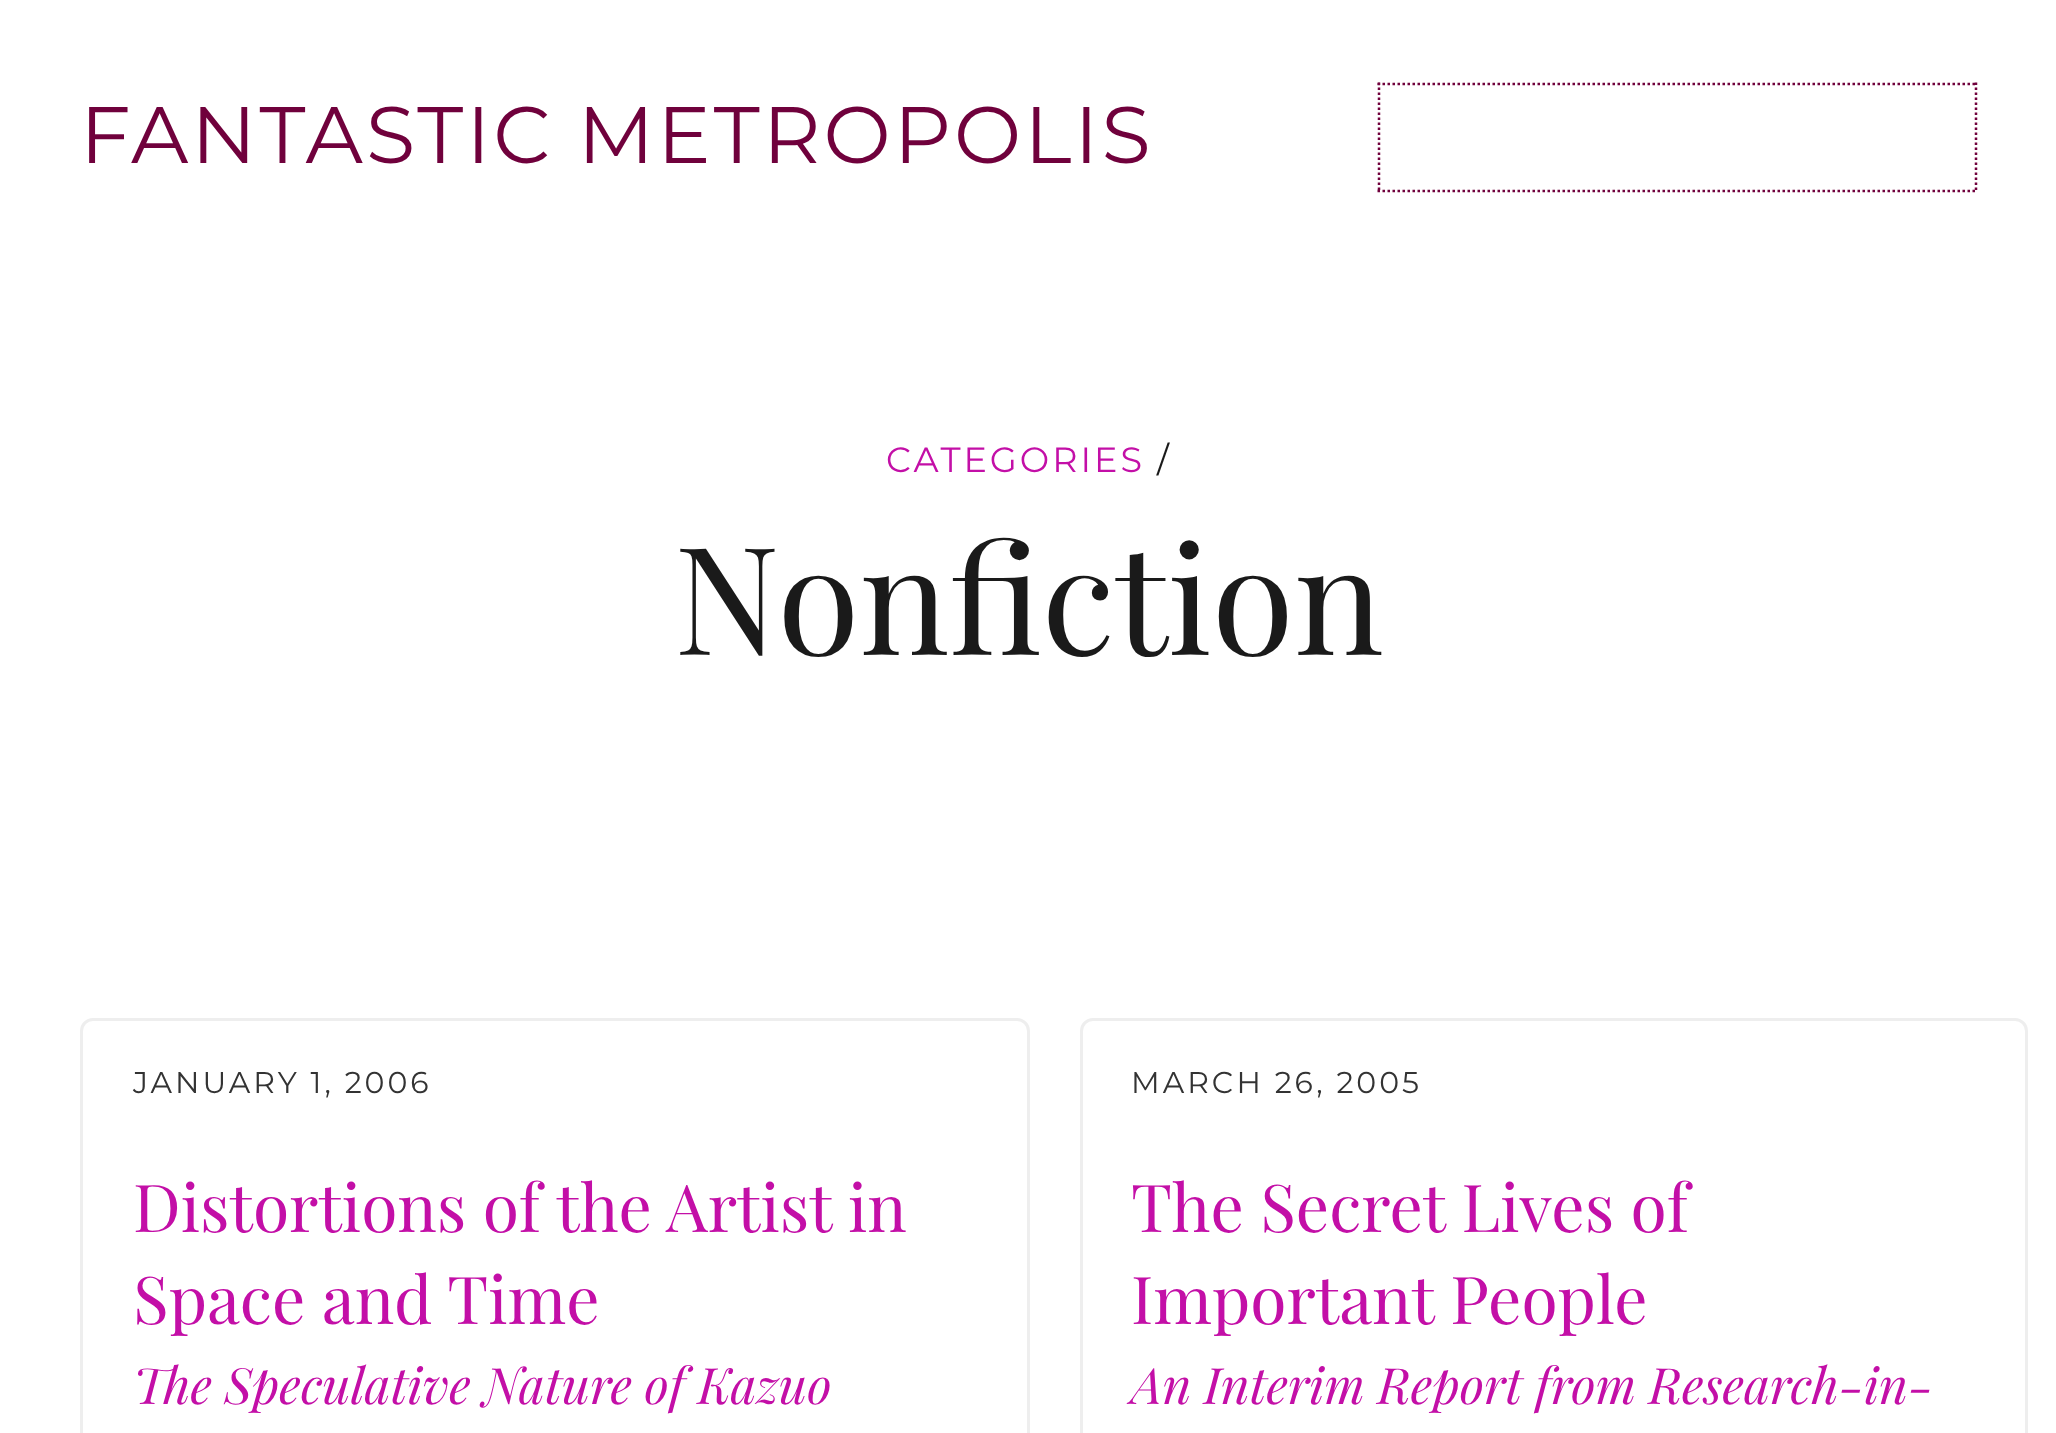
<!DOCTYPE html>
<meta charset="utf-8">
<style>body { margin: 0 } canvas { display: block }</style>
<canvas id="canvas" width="2056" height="1433"></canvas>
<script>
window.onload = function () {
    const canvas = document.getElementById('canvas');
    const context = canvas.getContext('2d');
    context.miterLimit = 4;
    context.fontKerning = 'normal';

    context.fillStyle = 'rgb(255, 255, 255)';
    context.fillRect(0, 0, 2056, 1433);
    context.beginPath();
    context.moveTo(1377.5, 84);
    context.lineTo(1977.5, 84);
    context.strokeStyle = 'rgb(112, 1, 60)';
    context.lineWidth = 2.5;
    context.setLineDash([2.5, 2.5]);
    context.stroke();
    context.beginPath();
    context.moveTo(1976, 82.5);
    context.lineTo(1976, 192.5);
    context.stroke();
    context.beginPath();
    context.moveTo(1377.5, 191);
    context.lineTo(1977.5, 191);
    context.stroke();
    context.beginPath();
    context.moveTo(1379, 82.5);
    context.lineTo(1379, 192.5);
    context.stroke();
    context.beginPath();
    context.roundRect(81.5, 1019.5, 947, 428, 11.5);
    context.strokeStyle = 'rgb(238, 238, 238)';
    context.lineWidth = 3;
    context.setLineDash([]);
    context.stroke();
    context.beginPath();
    context.roundRect(1081.5, 1019.5, 945, 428, 11.5);
    context.stroke();
    context.letterSpacing = '3px';
    context.font = '80px Montserrat';
    context.fillStyle = 'rgb(112, 1, 60)';
    context.fillText('FANTASTIC METROPOLIS', 80, 163);
    context.font = '35px Montserrat';
    context.fillStyle = 'rgb(195, 15, 167)';
    context.fillText('CATEGORIES', 886, 472);
    context.fillStyle = 'rgb(26, 26, 26)';
    context.fillText('/', 1157, 472);
    context.letterSpacing = '0px';
    context.font = '150px Playfair Display';
    context.fillText('Nonfiction', 674, 655);
    context.letterSpacing = '3px';
    context.font = '30px Montserrat';
    context.fillStyle = 'rgb(51, 51, 51)';
    context.fillText('JANUARY 1, 2006', 133, 1093);
    context.letterSpacing = '0px';
    context.font = '66px Playfair Display';
    context.fillStyle = 'rgb(195, 15, 167)';
    context.fillText('Distortions of the Artist in', 133, 1232);
    context.fillText('Space and Time', 133, 1324);
    context.font = 'italic 50px Playfair Display';
    context.fillText('The Speculative Nature of Kazuo', 133, 1404);
    context.letterSpacing = '3px';
    context.font = '30px Montserrat';
    context.fillStyle = 'rgb(51, 51, 51)';
    context.fillText('MARCH 26, 2005', 1131, 1093);
    context.letterSpacing = '0px';
    context.font = '66px Playfair Display';
    context.fillStyle = 'rgb(195, 15, 167)';
    context.fillText('The Secret Lives of', 1131, 1232);
    context.fillText('Important People', 1131, 1324);
    context.font = 'italic 50px Playfair Display';
    context.fillText('An Interim Report from Research-in-', 1131, 1404);
};
</script>
